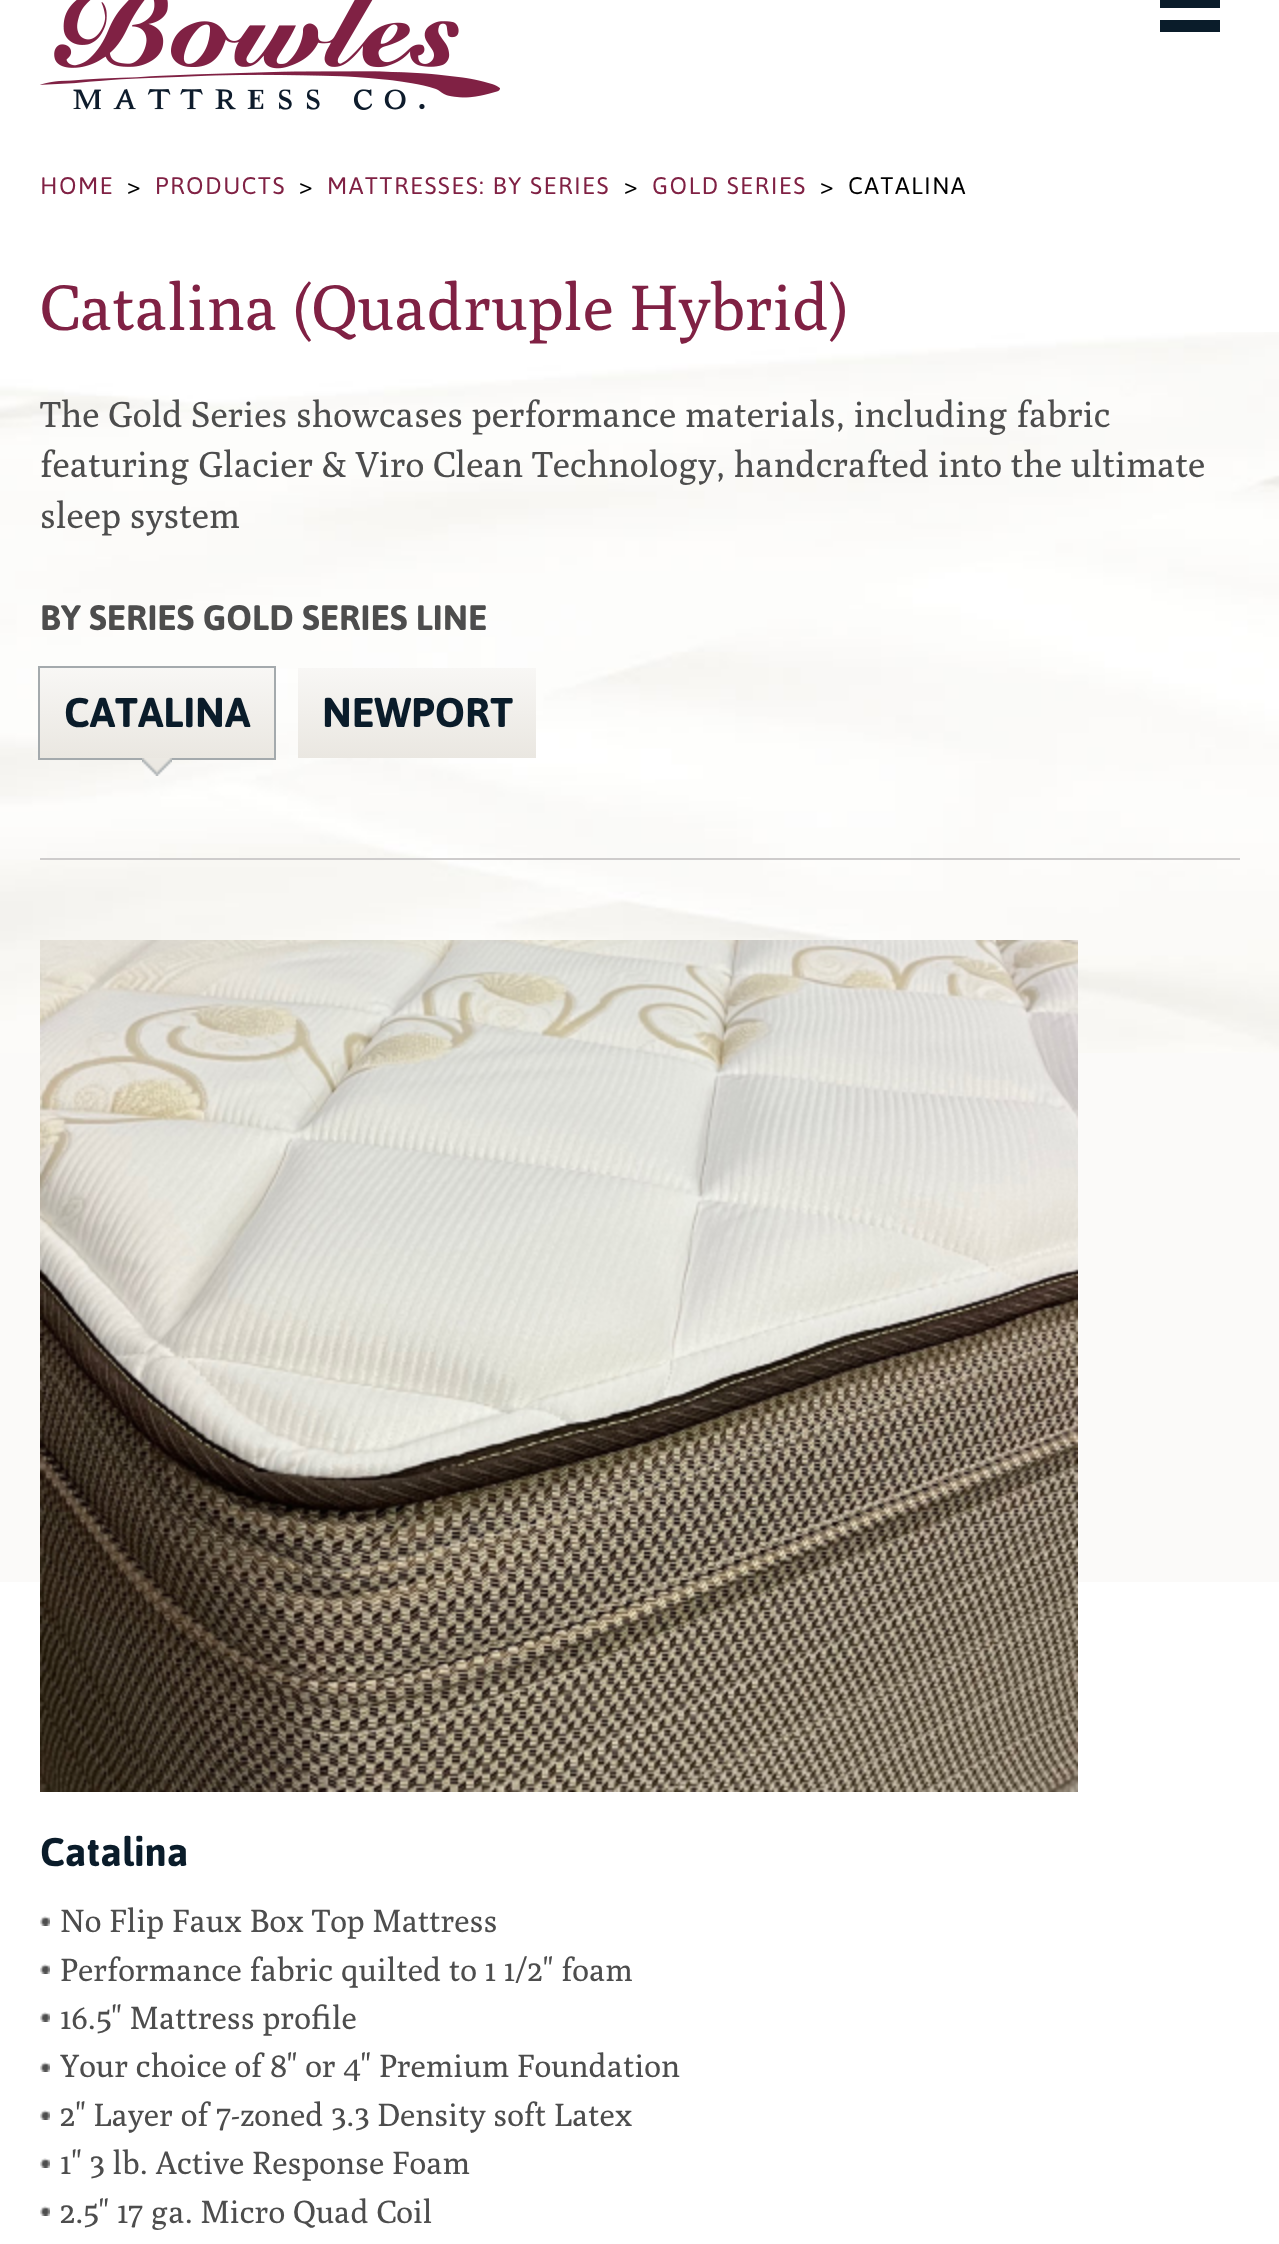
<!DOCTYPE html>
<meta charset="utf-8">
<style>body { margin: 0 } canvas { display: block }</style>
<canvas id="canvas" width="1279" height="2244"></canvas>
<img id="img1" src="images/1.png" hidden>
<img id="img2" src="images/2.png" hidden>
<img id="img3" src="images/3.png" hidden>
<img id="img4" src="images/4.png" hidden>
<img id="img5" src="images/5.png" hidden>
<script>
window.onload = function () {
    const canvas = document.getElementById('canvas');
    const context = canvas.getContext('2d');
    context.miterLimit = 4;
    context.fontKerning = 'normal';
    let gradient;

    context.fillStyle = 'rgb(255, 255, 255)';
    context.fillRect(0, 0, 1279, 2244);
    context.fillStyle = 'rgb(251, 250, 249)';
    context.fillRect(0, 1053, 1279, 529);
    context.drawImage(document.getElementById('img1'), 0, 332, 1279, 721);
    context.drawImage(document.getElementById('img2'), 40, 0, 460, 110);
    context.fillStyle = 'rgb(10, 28, 42)';
    context.fillRect(1160, 0, 60, 8);
    context.fillRect(1160, 20, 60, 12);
    context.fillStyle = 'rgb(206, 204, 204)';
    context.fillRect(40, 858, 1200, 2);
    gradient = context.createLinearGradient(157, 668, 157, 758);
    gradient.addColorStop(0, 'rgb(248, 247, 245)');
    gradient.addColorStop(1, 'rgb(234, 231, 225)');
    context.fillStyle = gradient;
    context.fillRect(40, 668, 234, 90);
    context.strokeStyle = 'rgb(164, 170, 173)';
    context.lineWidth = 2;
    context.strokeRect(39, 667, 236, 92);
    context.drawImage(document.getElementById('img3'), 142, 758, 30, 18);
    gradient = context.createLinearGradient(417, 668, 417, 758);
    gradient.addColorStop(0, 'rgb(248, 247, 245)');
    gradient.addColorStop(1, 'rgb(234, 231, 225)');
    context.fillStyle = gradient;
    context.fillRect(298, 668, 238, 90);
    context.drawImage(document.getElementById('img4'), 40, 940, 1038, 852);
    context.drawImage(document.getElementById('img5'), 40, 1916, 10, 10);
    context.drawImage(document.getElementById('img5'), 40, 1964, 10, 10);
    context.drawImage(document.getElementById('img5'), 40, 2012, 10, 10);
    context.drawImage(document.getElementById('img5'), 40, 2062, 10, 10);
    context.drawImage(document.getElementById('img5'), 40, 2110, 10, 10);
    context.drawImage(document.getElementById('img5'), 40, 2158, 10, 10);
    context.drawImage(document.getElementById('img5'), 40, 2206, 10, 10);
    context.letterSpacing = '1.4px';
    context.font = '24px Asap';
    context.fillStyle = 'rgb(128, 33, 68)';
    context.fillText('HOME', 40, 194);
    context.fillStyle = 'rgb(0, 0, 0)';
    context.fillText('>', 127, 194);
    context.fillStyle = 'rgb(128, 33, 68)';
    context.fillText('PRODUCTS', 155, 194);
    context.fillStyle = 'rgb(0, 0, 0)';
    context.fillText('>', 299, 194);
    context.fillStyle = 'rgb(128, 33, 68)';
    context.fillText('MATTRESSES: BY SERIES', 327, 194);
    context.fillStyle = 'rgb(0, 0, 0)';
    context.fillText('>', 624, 194);
    context.fillStyle = 'rgb(128, 33, 68)';
    context.fillText('GOLD SERIES', 652, 194);
    context.fillStyle = 'rgb(0, 0, 0)';
    context.fillText('>', 820, 194);
    context.fillText('CATALINA', 848, 194);
    context.letterSpacing = '0px';
    context.font = '64px Poly';
    context.fillStyle = 'rgb(128, 33, 68)';
    context.fillText('Catalina (Quadruple Hybrid)', 40, 330);
    context.font = '36px Poly';
    context.fillStyle = 'rgb(77, 77, 77)';
    context.fillText('The Gold Series showcases performance materials, including fabric', 40, 427);
    context.fillText('featuring Glacier & Viro Clean Technology, handcrafted into the ultimate', 40, 477);
    context.fillText('sleep system', 40, 528);
    context.font = 'bold 35.25px Asap';
    context.fillText('BY SERIES GOLD SERIES LINE', 40, 630);
    context.font = 'bold 41.5px Asap';
    context.fillStyle = 'rgb(10, 28, 42)';
    context.fillText('CATALINA', 64, 727);
    context.fillText('NEWPORT', 322, 727);
    context.font = 'bold 40px Asap';
    context.fillText('Catalina', 40, 1866);
    context.font = '32px Poly';
    context.fillStyle = 'rgb(77, 77, 77)';
    context.fillText('No Flip Faux Box Top Mattress', 60, 1932);
    context.fillText('Performance fabric quilted to 1 1/2" foam', 60, 1981);
    context.fillText('16.5" Mattress profile', 60, 2029);
    context.fillText('Your choice of 8" or 4" Premium Foundation', 60, 2077);
    context.fillText('2" Layer of 7-zoned 3.3 Density soft Latex', 60, 2126);
    context.fillText('1" 3 lb. Active Response Foam', 60, 2174);
    context.fillText('2.5" 17 ga. Micro Quad Coil', 60, 2223);
};
</script>
